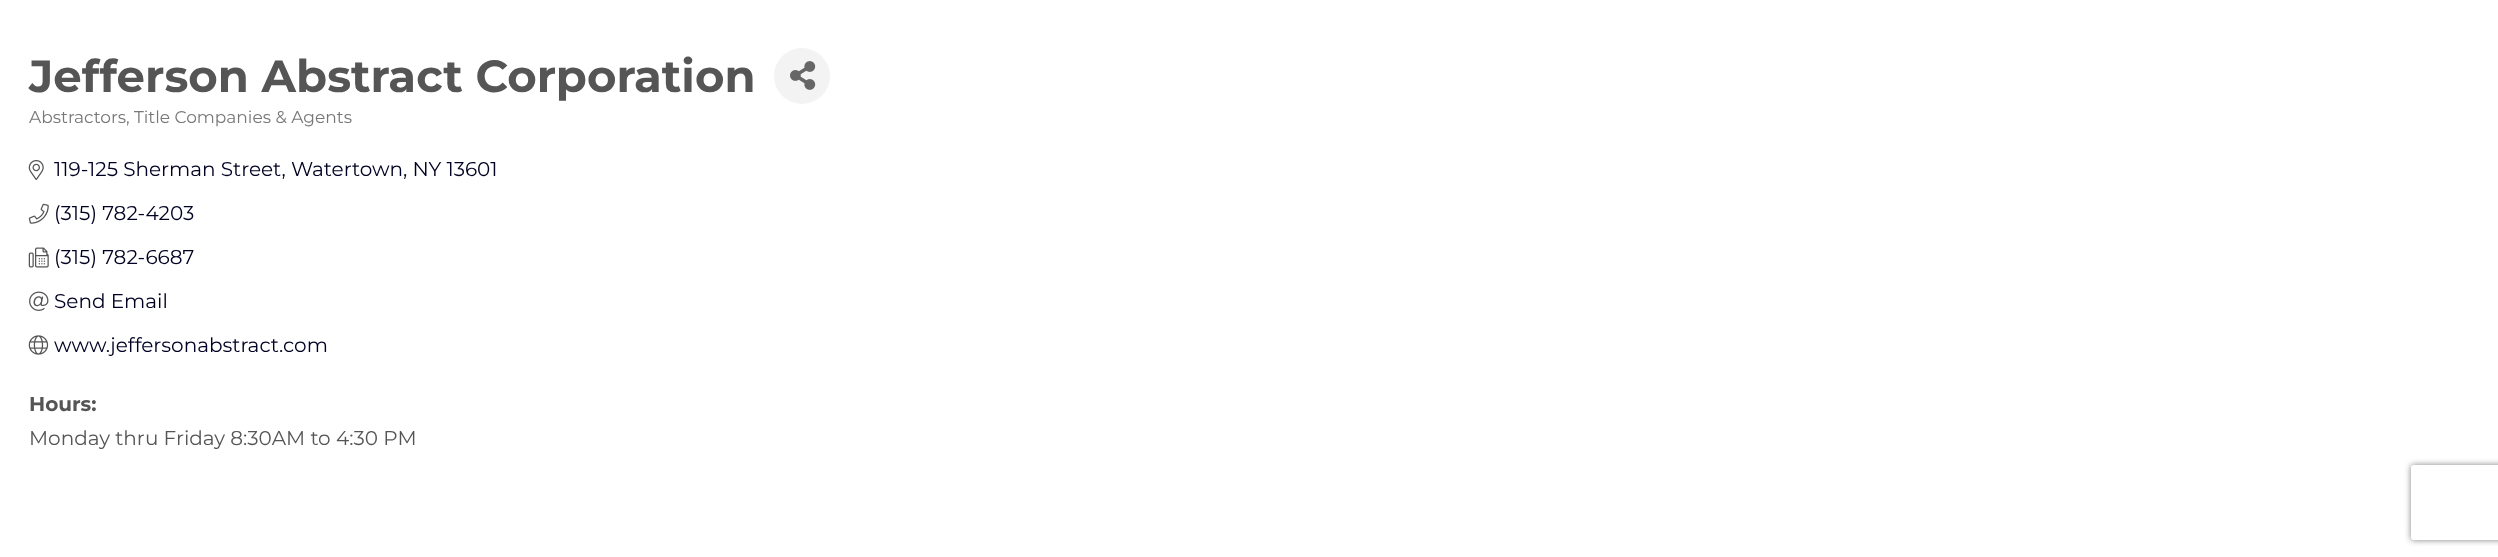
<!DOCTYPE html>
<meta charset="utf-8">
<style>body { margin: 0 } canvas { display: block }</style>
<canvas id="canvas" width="2498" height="557"></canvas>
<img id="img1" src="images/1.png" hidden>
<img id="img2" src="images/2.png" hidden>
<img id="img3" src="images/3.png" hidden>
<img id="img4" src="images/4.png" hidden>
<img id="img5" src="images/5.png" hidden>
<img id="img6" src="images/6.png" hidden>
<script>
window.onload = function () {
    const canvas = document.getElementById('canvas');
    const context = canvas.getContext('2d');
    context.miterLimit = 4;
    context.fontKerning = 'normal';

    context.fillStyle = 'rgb(255, 255, 255)';
    context.fillRect(0, 0, 2498, 557);
    context.fillStyle = 'rgb(243, 243, 243)';
    context.beginPath();
    context.arc(802, 76, 28, 0, 2 * Math.PI);
    context.fill();
    context.drawImage(document.getElementById('img1'), 790, 61, 26, 29);
    context.drawImage(document.getElementById('img2'), 28, 160, 16, 20);
    context.drawImage(document.getElementById('img3'), 28, 203, 21, 21);
    context.drawImage(document.getElementById('img4'), 28, 247, 21, 21);
    context.drawImage(document.getElementById('img5'), 29, 291, 20, 20);
    context.drawImage(document.getElementById('img6'), 28, 335, 21, 20);
    context.save();
    context.beginPath();
    context.moveTo(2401, 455);
    context.lineTo(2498, 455);
    context.lineTo(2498, 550);
    context.lineTo(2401, 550);
    context.closePath();
    context.moveTo(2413.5, 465);
    context.lineTo(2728.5, 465);
    context.bezierCurveTo(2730, 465, 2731, 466, 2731, 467.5);
    context.lineTo(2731, 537.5);
    context.bezierCurveTo(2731, 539, 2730, 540, 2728.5, 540);
    context.lineTo(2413.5, 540);
    context.bezierCurveTo(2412, 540, 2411, 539, 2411, 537.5);
    context.lineTo(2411, 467.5);
    context.bezierCurveTo(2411, 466, 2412, 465, 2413.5, 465);
    context.closePath();
    context.clip('evenodd');
    context.fillStyle = 'rgb(128, 128, 128)';
    context.filter = 'blur(3px)';
    context.beginPath();
    context.roundRect(2411, 465, 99, 75, 2.5);
    context.fill();
    context.filter = 'none';
    context.restore();
    context.font = 'bold 45px Montserrat';
    context.fillStyle = 'rgb(85, 85, 85)';
    context.fillText('Jefferson Abstract Corporation', 29, 92);
    context.font = '17px Montserrat';
    context.fillStyle = 'rgb(119, 119, 119)';
    context.fillText('Abstractors, Title Companies & Agents', 29, 123);
    context.font = '20px Montserrat';
    context.fillStyle = 'rgb(0, 0, 34)';
    context.fillText('119-125 Sherman Street, Watertown, NY 13601', 54, 176);
    context.fillText('(315) 782-4203', 54, 220);
    context.fillText('(315) 782-6687', 54, 264);
    context.fillText('Send Email', 54, 308);
    context.fillText('www.jeffersonabstract.com', 54, 352);
    context.font = 'bold 20px Montserrat';
    context.fillStyle = 'rgb(85, 85, 85)';
    context.fillText('Hours:', 29, 411);
    context.font = '20px Montserrat';
    context.fillText('Monday thru Friday 8:30AM to 4:30 PM', 29, 445);
};
</script>
